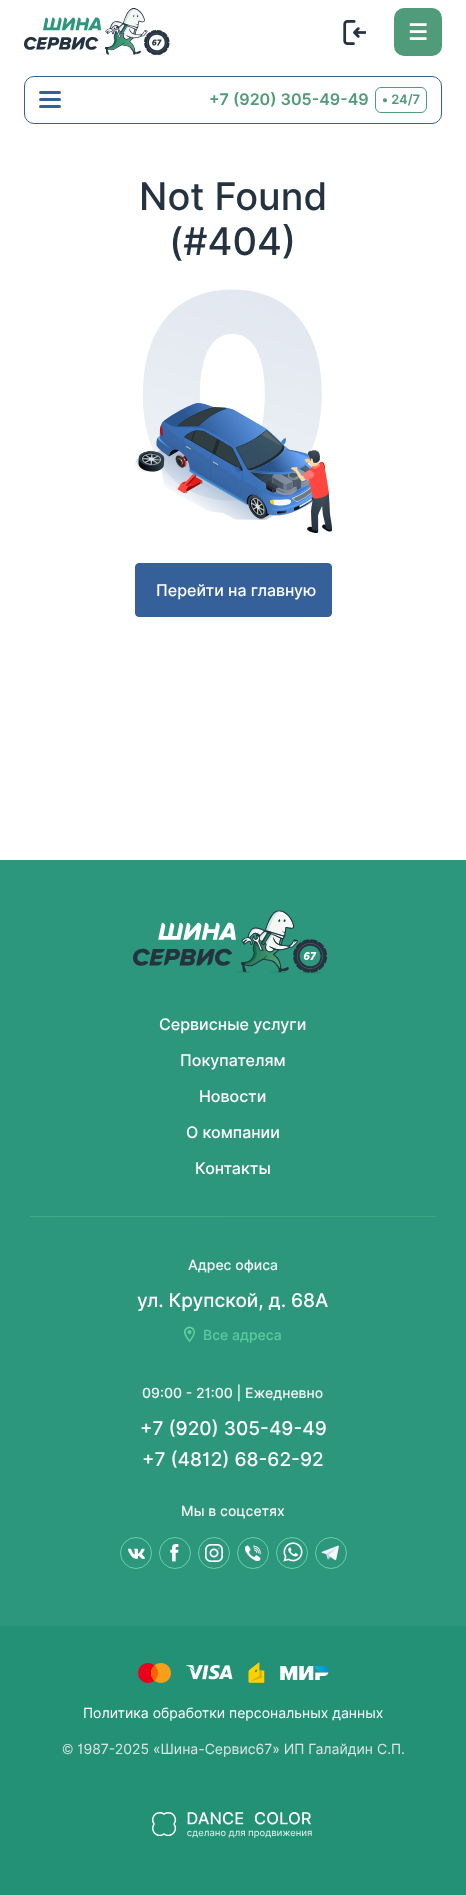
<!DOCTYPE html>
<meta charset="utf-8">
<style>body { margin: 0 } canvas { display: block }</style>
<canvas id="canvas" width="466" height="1895"></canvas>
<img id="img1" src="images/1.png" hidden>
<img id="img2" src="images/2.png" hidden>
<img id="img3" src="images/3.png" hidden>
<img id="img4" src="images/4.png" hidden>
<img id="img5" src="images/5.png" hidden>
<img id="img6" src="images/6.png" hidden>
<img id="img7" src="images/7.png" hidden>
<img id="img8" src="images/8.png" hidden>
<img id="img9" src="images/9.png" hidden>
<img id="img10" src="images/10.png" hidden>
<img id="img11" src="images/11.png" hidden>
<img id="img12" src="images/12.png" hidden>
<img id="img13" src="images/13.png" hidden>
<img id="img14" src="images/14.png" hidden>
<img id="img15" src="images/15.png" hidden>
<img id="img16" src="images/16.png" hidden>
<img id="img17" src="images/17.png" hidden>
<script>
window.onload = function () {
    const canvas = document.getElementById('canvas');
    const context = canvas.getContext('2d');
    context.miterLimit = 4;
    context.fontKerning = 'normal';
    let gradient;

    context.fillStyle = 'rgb(255, 255, 255)';
    context.fillRect(0, 0, 466, 1895);
    context.drawImage(document.getElementById('img1'), 24, 8, 146, 48);
    context.drawImage(document.getElementById('img2'), 343, 20, 23, 25);
    context.fillStyle = 'rgb(79, 155, 122)';
    context.beginPath();
    context.roundRect(394, 8, 48, 48, 10);
    context.fill();
    context.beginPath();
    context.roundRect(24.5, 76.5, 417, 47, 9.5);
    context.strokeStyle = 'rgb(54, 96, 153)';
    context.stroke();
    context.fillStyle = 'rgb(54, 96, 153)';
    context.beginPath();
    context.roundRect(39, 91, 22, 3, 1.5);
    context.fill();
    context.beginPath();
    context.roundRect(39, 98, 22, 3, 1.5);
    context.fill();
    context.beginPath();
    context.roundRect(39, 105, 22, 3, 1.5);
    context.fill();
    context.beginPath();
    context.roundRect(375.5, 87.5, 51, 25, 5.5);
    context.strokeStyle = 'rgb(79, 155, 122)';
    context.stroke();
    context.drawImage(document.getElementById('img3'), 143, 289, 179, 212);
    context.drawImage(document.getElementById('img4'), 135, 403, 197, 130);
    context.beginPath();
    context.roundRect(135.5, 563.5, 196, 53, 3.5);
    context.fill();
    context.strokeStyle = 'rgb(54, 96, 153)';
    context.stroke();
    context.fillStyle = 'rgb(44, 151, 125)';
    context.fillRect(0, 860, 466, 766);
    context.drawImage(document.getElementById('img5'), 133, 910, 195, 64);
    gradient = context.createLinearGradient(30, 1217, 436, 1217);
    gradient.addColorStop(0, 'rgb(62, 169, 139)');
    gradient.addColorStop(1, 'rgb(58, 167, 128)');
    context.fillStyle = gradient;
    context.fillRect(30, 1216, 406, 1);
    context.drawImage(document.getElementById('img6'), 184, 1326, 11, 17);
    context.beginPath();
    context.arc(136, 1553, 15.5, 0, 2 * Math.PI);
    context.strokeStyle = 'rgb(102, 210, 163)';
    context.stroke();
    context.drawImage(document.getElementById('img7'), 128, 1548, 17, 11);
    context.beginPath();
    context.arc(175, 1553, 15.5, 0, 2 * Math.PI);
    context.stroke();
    context.drawImage(document.getElementById('img8'), 170, 1544, 9, 18);
    context.beginPath();
    context.arc(214, 1553, 15.5, 0, 2 * Math.PI);
    context.stroke();
    context.drawImage(document.getElementById('img9'), 205, 1544, 18, 18);
    context.beginPath();
    context.arc(253, 1553, 15.5, 0, 2 * Math.PI);
    context.stroke();
    context.drawImage(document.getElementById('img10'), 245, 1545, 16, 16);
    context.beginPath();
    context.arc(292, 1553, 15.5, 0, 2 * Math.PI);
    context.stroke();
    context.drawImage(document.getElementById('img11'), 283, 1542, 20, 20);
    context.beginPath();
    context.arc(331, 1553, 15.5, 0, 2 * Math.PI);
    context.stroke();
    context.drawImage(document.getElementById('img12'), 321, 1545, 18, 16);
    context.fillStyle = 'rgb(34, 145, 118)';
    context.fillRect(0, 1626, 466, 269);
    context.drawImage(document.getElementById('img13'), 138, 1663, 33, 20);
    context.drawImage(document.getElementById('img14'), 186, 1665, 47, 15);
    context.drawImage(document.getElementById('img15'), 248, 1662, 17, 21);
    context.drawImage(document.getElementById('img16'), 280, 1666, 49, 14);
    context.drawImage(document.getElementById('img17'), 152, 1812, 160, 26);
    context.font = 'bold 22px DejaVu Sans';
    context.fillStyle = 'rgb(255, 255, 255)';
    context.fillText('☰', 408, 40);
    context.font = '600 16px Inter';
    context.fillStyle = 'rgb(79, 155, 122)';
    context.fillText('+7 (920) 305-49-49', 209, 105);
    context.font = '600 13px Inter';
    context.fillText('• 24/7', 382, 104);
    context.font = '500 38px Inter';
    context.fillStyle = 'rgb(37, 51, 64)';
    context.fillText('Not Found', 139, 210);
    context.fillText('(#404)', 169, 255);
    context.font = '500 16px Inter';
    context.fillStyle = 'rgb(255, 255, 255)';
    context.fillText('Перейти на главную', 156, 596);
    context.fillText('Сервисные услуги', 159, 1030);
    context.fillText('Покупателям', 180, 1066);
    context.fillText('Новости', 199, 1102);
    context.fillText('О компании', 186, 1138);
    context.fillText('Контакты', 195, 1174);
    context.font = '500 14px Inter';
    context.fillStyle = 'rgb(242, 244, 245)';
    context.fillText('Адрес офиса', 188, 1270);
    context.font = '500 19px Inter';
    context.fillStyle = 'rgb(255, 255, 255)';
    context.fillText('ул. Крупской, д. 68А', 137, 1307);
    context.font = '500 14px Inter';
    context.fillStyle = 'rgb(93, 202, 158)';
    context.fillText('Все адреса', 203, 1340);
    context.fillStyle = 'rgb(242, 244, 245)';
    context.fillText('09:00 - 21:00 | Ежедневно', 142, 1398);
    context.font = '500 19px Inter';
    context.fillStyle = 'rgb(255, 255, 255)';
    context.fillText('+7 (920) 305-49-49', 140, 1435);
    context.fillText('+7 (4812) 68-62-92', 142, 1466);
    context.font = '500 14px Inter';
    context.fillStyle = 'rgb(242, 244, 245)';
    context.fillText('Мы в соцсетях', 181, 1516);
    context.font = '14px Inter';
    context.fillStyle = 'rgb(255, 255, 255)';
    context.fillText('Политика обработки персональных данных', 83, 1718);
    context.fillStyle = 'rgb(221, 229, 230)';
    context.fillText('© 1987-2025 «Шина-Сервис67» ИП Галайдин С.П.', 62, 1754);
};
</script>
